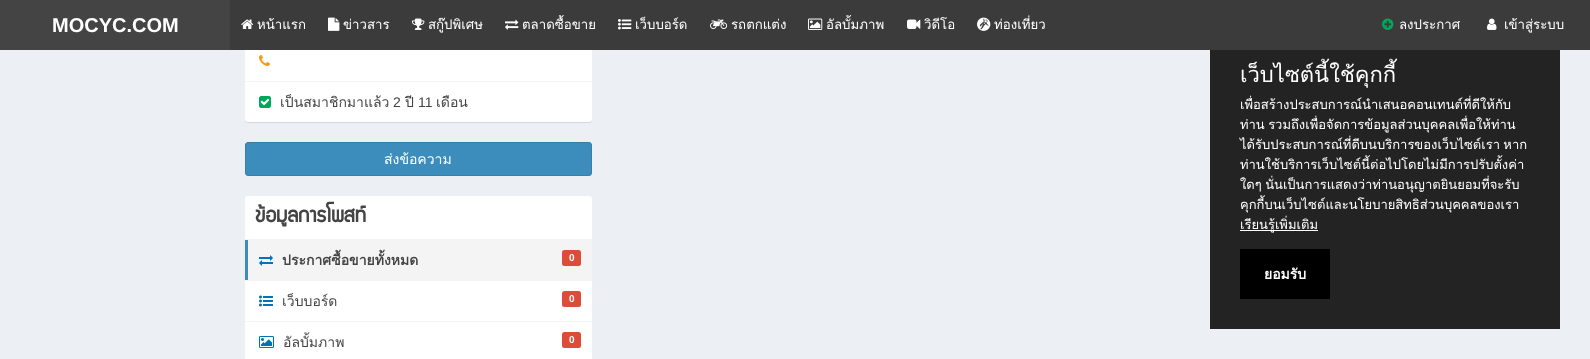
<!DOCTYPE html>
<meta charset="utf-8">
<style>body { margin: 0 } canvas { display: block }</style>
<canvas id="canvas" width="1590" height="359"></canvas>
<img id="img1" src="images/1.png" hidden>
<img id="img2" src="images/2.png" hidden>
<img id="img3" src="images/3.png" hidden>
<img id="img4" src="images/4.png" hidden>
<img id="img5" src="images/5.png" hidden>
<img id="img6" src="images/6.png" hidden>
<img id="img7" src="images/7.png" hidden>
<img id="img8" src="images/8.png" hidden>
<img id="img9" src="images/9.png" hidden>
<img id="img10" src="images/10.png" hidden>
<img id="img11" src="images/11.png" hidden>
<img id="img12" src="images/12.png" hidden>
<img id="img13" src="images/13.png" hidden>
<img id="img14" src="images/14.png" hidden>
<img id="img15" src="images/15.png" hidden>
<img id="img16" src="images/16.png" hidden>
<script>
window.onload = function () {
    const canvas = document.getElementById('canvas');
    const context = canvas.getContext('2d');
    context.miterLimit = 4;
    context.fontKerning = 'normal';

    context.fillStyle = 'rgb(236, 240, 245)';
    context.fillRect(0, 0, 1590, 359);
    context.fillStyle = 'rgb(69, 68, 68)';
    context.fillRect(0, 0, 230, 50);
    context.fillStyle = 'rgba(0, 0, 0, 0.1)';
    context.filter = 'blur(0.5px)';
    context.beginPath();
    context.roundRect(245, -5, 347, 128, 3);
    context.fill();
    context.filter = 'none';
    context.fillStyle = 'rgb(255, 255, 255)';
    context.beginPath();
    context.roundRect(245, -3, 347, 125, 3);
    context.fill();
    context.fillStyle = 'rgb(59, 59, 59)';
    context.fillRect(230, 0, 1360, 50);
    context.drawImage(document.getElementById('img1'), 241, 19, 13, 10);
    context.drawImage(document.getElementById('img2'), 328, 17, 12, 14);
    context.drawImage(document.getElementById('img3'), 412, 18, 13, 12);
    context.drawImage(document.getElementById('img4'), 505, 19, 14, 11);
    context.drawImage(document.getElementById('img5'), 618, 19, 14, 11);
    context.drawImage(document.getElementById('img6'), 710, 19, 18, 10);
    context.drawImage(document.getElementById('img7'), 808, 18, 15, 12);
    context.drawImage(document.getElementById('img8'), 907, 19, 14, 10);
    context.drawImage(document.getElementById('img9'), 977, 17, 14, 14);
    context.drawImage(document.getElementById('img10'), 1382, 18, 12, 12);
    context.drawImage(document.getElementById('img11'), 1487, 18, 10, 12);
    context.fillStyle = 'rgb(244, 244, 244)';
    context.fillRect(245, 81, 347, 1);
    context.drawImage(document.getElementById('img12'), 259, 55, 11, 11);
    context.drawImage(document.getElementById('img13'), 259, 96, 12, 12);
    context.fillStyle = 'rgb(60, 141, 188)';
    context.beginPath();
    context.roundRect(245.5, 142.5, 346, 33, 2.5);
    context.fill();
    context.strokeStyle = 'rgb(54, 127, 169)';
    context.stroke();
    context.fillStyle = 'rgb(255, 255, 255)';
    context.beginPath();
    context.roundRect(245, 196, 347, 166, 3);
    context.fill();
    context.fillStyle = 'rgb(244, 244, 244)';
    context.fillRect(245, 239, 347, 1);
    context.fillRect(245, 280, 347, 1);
    context.fillRect(248, 240, 344, 40);
    context.fillStyle = 'rgb(60, 141, 188)';
    context.fillRect(245, 240, 3, 40);
    context.drawImage(document.getElementById('img14'), 259, 255, 14, 11);
    context.fillStyle = 'rgb(221, 75, 57)';
    context.beginPath();
    context.roundRect(562, 250, 19, 16, 2.5);
    context.fill();
    context.fillStyle = 'rgb(244, 244, 244)';
    context.fillRect(245, 321, 347, 1);
    context.drawImage(document.getElementById('img15'), 259, 295, 14, 12);
    context.fillStyle = 'rgb(221, 75, 57)';
    context.beginPath();
    context.roundRect(562, 291, 19, 16, 2.5);
    context.fill();
    context.drawImage(document.getElementById('img16'), 259, 336, 15, 12);
    context.beginPath();
    context.roundRect(562, 332, 19, 16, 2.5);
    context.fill();
    context.fillStyle = 'rgb(35, 35, 35)';
    context.fillRect(1210, 50, 350, 279);
    context.fillStyle = 'rgb(255, 255, 255)';
    context.fillRect(1240, 230, 78, 1);
    context.fillStyle = 'rgb(0, 0, 0)';
    context.fillRect(1240, 249, 90, 50);
    context.font = 'bold 20px Liberation Sans';
    context.fillStyle = 'rgb(255, 255, 255)';
    context.fillText('MOCYC.COM', 52, 32);
    context.font = '13.25px Loma';
    context.fillText('หน้าแรก', 257, 29);
    context.fillText('ข่าวสาร', 343, 29);
    context.fillText('สกู๊ปพิเศษ', 428, 29);
    context.fillText('ตลาดซื้อขาย', 522, 29);
    context.fillText('เว็บบอร์ด', 635, 29);
    context.fillText('รถตกแต่ง', 731, 29);
    context.fillText('อัลบั้มภาพ', 826, 29);
    context.fillText('วิดีโอ', 924, 29);
    context.fillText('ท่องเที่ยว', 994, 29);
    context.fillText('ลงประกาศ', 1399, 29);
    context.fillText('เข้าสู่ระบบ', 1504, 29);
    context.font = '14px Loma';
    context.fillStyle = 'rgb(68, 68, 68)';
    context.fillText('เป็นสมาชิกมาแล้ว', 280, 107);
    context.font = '14px Liberation Sans';
    context.fillText('2', 393, 107);
    context.font = '14px Loma';
    context.fillText('ปี', 405, 107);
    context.font = '14px Liberation Sans';
    context.fillText('11', 418, 107);
    context.font = '14px Loma';
    context.fillText('เดือน', 436, 107);
    context.fillStyle = 'rgb(255, 255, 255)';
    context.fillText('ส่งข้อความ', 384, 164);
    context.font = 'bold 22.5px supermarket';
    context.fillStyle = 'rgb(68, 68, 68)';
    context.fillText('ข้อมูลการโพสท์', 255, 222);
    context.font = 'bold 14px Loma';
    context.fillText('ประกาศซื้อขายทั้งหมด', 282, 265);
    context.font = 'bold 10px Liberation Sans';
    context.fillStyle = 'rgb(255, 255, 255)';
    context.fillText('0', 569, 261);
    context.font = '14px Loma';
    context.fillStyle = 'rgb(68, 68, 68)';
    context.fillText('เว็บบอร์ด', 282, 306);
    context.font = 'bold 10px Liberation Sans';
    context.fillStyle = 'rgb(255, 255, 255)';
    context.fillText('0', 569, 302);
    context.font = '14px Loma';
    context.fillStyle = 'rgb(68, 68, 68)';
    context.fillText('อัลบั้มภาพ', 283, 347);
    context.font = 'bold 10px Liberation Sans';
    context.fillStyle = 'rgb(255, 255, 255)';
    context.fillText('0', 569, 343);
    context.font = '22px Loma';
    context.fillText('เว็บไซต์นี้ใช้คุกกี้', 1240, 82);
    context.font = '13px Loma';
    context.fillText('เพื่อสร้างประสบการณ์นำเสนอคอนเทนต์ที่ดีให้กับ', 1240, 109);
    context.wordSpacing = '-1px';
    context.fillText('ท่าน รวมถึงเพื่อจัดการข้อมูลส่วนบุคคลเพื่อให้ท่าน', 1240, 129);
    context.fillText('ได้รับประสบการณ์ที่ดีบนบริการของเว็บไซต์เรา หาก', 1240, 149);
    context.wordSpacing = '0px';
    context.fillText('ท่านใช้บริการเว็บไซต์นี้ต่อไปโดยไม่มีการปรับตั้งค่า', 1240, 169);
    context.wordSpacing = '-1px';
    context.fillText('ใดๆ นั่นเป็นการแสดงว่าท่านอนุญาตยินยอมที่จะรับ', 1240, 189);
    context.wordSpacing = '0px';
    context.fillText('คุกกี้บนเว็บไซต์และนโยบายสิทธิส่วนบุคคลของเรา', 1240, 209);
    context.fillText('เรียนรู้เพิ่มเติม', 1240, 229);
    context.font = 'bold 14px Loma';
    context.fillText('ยอมรับ', 1264, 279);
};
</script>
